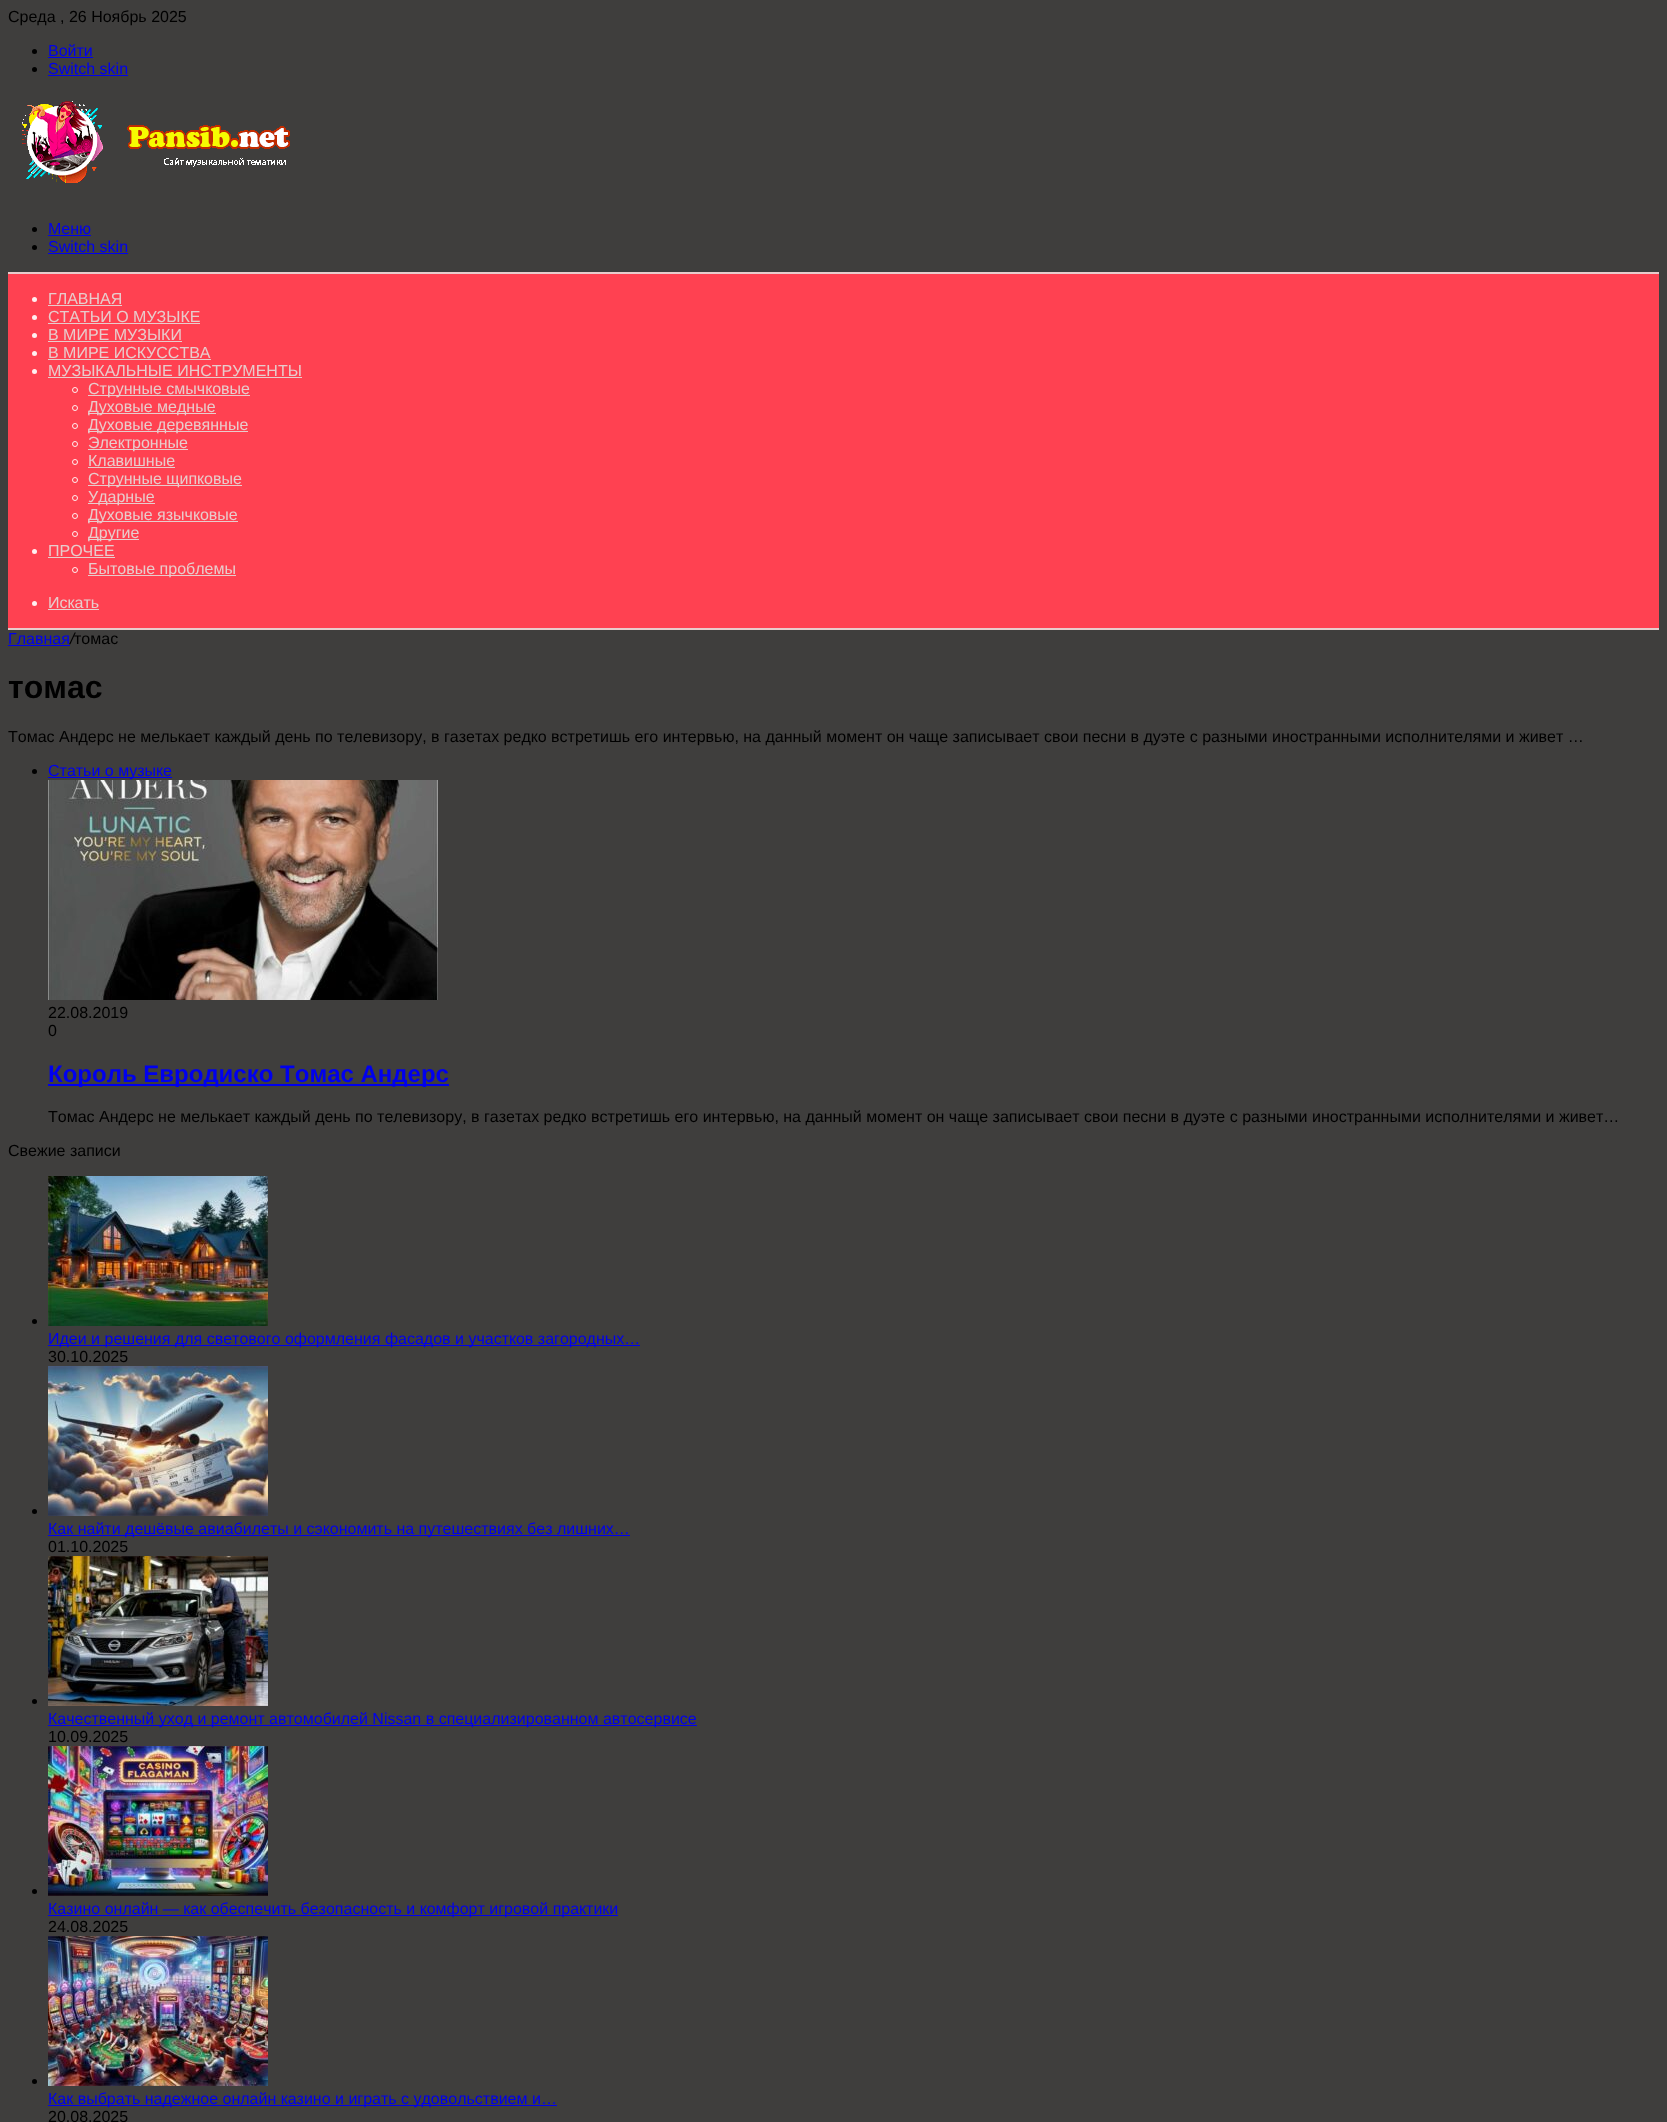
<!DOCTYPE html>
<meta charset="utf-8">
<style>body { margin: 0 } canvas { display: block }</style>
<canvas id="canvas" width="1667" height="2122"></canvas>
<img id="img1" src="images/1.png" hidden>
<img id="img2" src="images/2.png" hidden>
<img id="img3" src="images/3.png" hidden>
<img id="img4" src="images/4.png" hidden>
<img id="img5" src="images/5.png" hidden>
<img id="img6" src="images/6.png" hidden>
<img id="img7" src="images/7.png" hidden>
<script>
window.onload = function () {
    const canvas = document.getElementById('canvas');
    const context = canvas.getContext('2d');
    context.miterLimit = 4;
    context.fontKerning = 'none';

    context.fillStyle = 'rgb(63, 62, 61)';
    context.fillRect(0, 0, 1667, 2122);
    context.fillStyle = 'rgb(0, 0, 0)';
    context.beginPath();
    context.arc(34.5, 51.5, 2.5, 0, 2 * Math.PI);
    context.fill();
    context.fillStyle = 'rgb(0, 0, 238)';
    context.fillRect(48, 57, 45, 1);
    context.fillStyle = 'rgb(0, 0, 0)';
    context.beginPath();
    context.arc(34.5, 69.5, 2.5, 0, 2 * Math.PI);
    context.fill();
    context.fillStyle = 'rgb(0, 0, 238)';
    context.fillRect(48, 75, 80, 1);
    context.drawImage(document.getElementById('img1'), 22, 101, 268, 82);
    context.fillStyle = 'rgb(0, 0, 0)';
    context.beginPath();
    context.arc(34.5, 229.5, 2.5, 0, 2 * Math.PI);
    context.fill();
    context.fillStyle = 'rgb(0, 0, 238)';
    context.fillRect(48, 235, 43, 1);
    context.fillStyle = 'rgb(0, 0, 0)';
    context.beginPath();
    context.arc(34.5, 247.5, 2.5, 0, 2 * Math.PI);
    context.fill();
    context.fillStyle = 'rgb(0, 0, 238)';
    context.fillRect(48, 253, 80, 1);
    context.fillStyle = 'rgb(255, 65, 81)';
    context.fillRect(8, 274, 1651, 354);
    context.fillStyle = 'rgb(232, 204, 204)';
    context.fillRect(8, 272, 1651, 2);
    context.fillRect(8, 628, 1651, 2);
    context.fillStyle = 'rgb(255, 239, 240)';
    context.beginPath();
    context.arc(34.5, 299.5, 2.5, 0, 2 * Math.PI);
    context.fill();
    context.fillStyle = 'rgb(232, 204, 204)';
    context.fillRect(48, 305, 74, 1);
    context.fillStyle = 'rgb(255, 239, 240)';
    context.beginPath();
    context.arc(34.5, 317.5, 2.5, 0, 2 * Math.PI);
    context.fill();
    context.fillStyle = 'rgb(232, 204, 204)';
    context.fillRect(48, 323, 152, 1);
    context.fillStyle = 'rgb(255, 239, 240)';
    context.beginPath();
    context.arc(34.5, 335.5, 2.5, 0, 2 * Math.PI);
    context.fill();
    context.fillStyle = 'rgb(232, 204, 204)';
    context.fillRect(48, 341, 134, 1);
    context.fillStyle = 'rgb(255, 239, 240)';
    context.beginPath();
    context.arc(34.5, 353.5, 2.5, 0, 2 * Math.PI);
    context.fill();
    context.fillStyle = 'rgb(232, 204, 204)';
    context.fillRect(48, 359, 163, 1);
    context.fillStyle = 'rgb(255, 239, 240)';
    context.beginPath();
    context.arc(34.5, 371.5, 2.5, 0, 2 * Math.PI);
    context.fill();
    context.fillStyle = 'rgb(232, 204, 204)';
    context.fillRect(48, 377, 254, 1);
    context.beginPath();
    context.arc(75, 390, 2.5, 0, 2 * Math.PI);
    context.strokeStyle = 'rgb(255, 239, 240)';
    context.stroke();
    context.fillRect(88, 395, 162, 1);
    context.beginPath();
    context.arc(75, 408, 2.5, 0, 2 * Math.PI);
    context.stroke();
    context.fillRect(88, 413, 128, 1);
    context.beginPath();
    context.arc(75, 426, 2.5, 0, 2 * Math.PI);
    context.stroke();
    context.fillRect(88, 431, 160, 1);
    context.beginPath();
    context.arc(75, 444, 2.5, 0, 2 * Math.PI);
    context.stroke();
    context.fillRect(88, 449, 100, 1);
    context.beginPath();
    context.arc(75, 462, 2.5, 0, 2 * Math.PI);
    context.stroke();
    context.fillRect(88, 467, 87, 1);
    context.beginPath();
    context.arc(75, 480, 2.5, 0, 2 * Math.PI);
    context.stroke();
    context.fillRect(88, 485, 154, 1);
    context.beginPath();
    context.arc(75, 498, 2.5, 0, 2 * Math.PI);
    context.stroke();
    context.fillRect(88, 503, 67, 1);
    context.beginPath();
    context.arc(75, 516, 2.5, 0, 2 * Math.PI);
    context.stroke();
    context.fillRect(88, 521, 150, 1);
    context.beginPath();
    context.arc(75, 534, 2.5, 0, 2 * Math.PI);
    context.stroke();
    context.fillRect(88, 539, 51, 1);
    context.fillStyle = 'rgb(255, 239, 240)';
    context.beginPath();
    context.arc(34.5, 551.5, 2.5, 0, 2 * Math.PI);
    context.fill();
    context.fillStyle = 'rgb(232, 204, 204)';
    context.fillRect(48, 557, 67, 1);
    context.beginPath();
    context.arc(75, 570, 2.5, 0, 2 * Math.PI);
    context.stroke();
    context.fillRect(88, 575, 148, 1);
    context.fillStyle = 'rgb(255, 239, 240)';
    context.beginPath();
    context.arc(34.5, 603.5, 2.5, 0, 2 * Math.PI);
    context.fill();
    context.fillStyle = 'rgb(232, 204, 204)';
    context.fillRect(48, 609, 51, 1);
    context.fillStyle = 'rgb(0, 0, 238)';
    context.fillRect(8, 645, 62, 1);
    context.fillStyle = 'rgb(0, 0, 0)';
    context.beginPath();
    context.arc(34.5, 771.5, 2.5, 0, 2 * Math.PI);
    context.fill();
    context.fillStyle = 'rgb(0, 0, 238)';
    context.fillRect(48, 777, 124, 1);
    context.drawImage(document.getElementById('img2'), 48, 780, 390, 220);
    context.fillRect(48, 1084, 401, 2);
    context.fillStyle = 'rgb(0, 0, 0)';
    context.beginPath();
    context.arc(34.5, 1321.5, 2.5, 0, 2 * Math.PI);
    context.fill();
    context.drawImage(document.getElementById('img3'), 48, 1176, 220, 150);
    context.fillStyle = 'rgb(0, 0, 238)';
    context.fillRect(48, 1345, 592, 1);
    context.fillStyle = 'rgb(0, 0, 0)';
    context.beginPath();
    context.arc(34.5, 1511.5, 2.5, 0, 2 * Math.PI);
    context.fill();
    context.drawImage(document.getElementById('img4'), 48, 1366, 220, 150);
    context.fillStyle = 'rgb(0, 0, 238)';
    context.fillRect(48, 1535, 582, 1);
    context.fillStyle = 'rgb(0, 0, 0)';
    context.beginPath();
    context.arc(34.5, 1701.5, 2.5, 0, 2 * Math.PI);
    context.fill();
    context.drawImage(document.getElementById('img5'), 48, 1556, 220, 150);
    context.fillStyle = 'rgb(0, 0, 238)';
    context.fillRect(48, 1725, 649, 1);
    context.fillStyle = 'rgb(0, 0, 0)';
    context.beginPath();
    context.arc(34.5, 1891.5, 2.5, 0, 2 * Math.PI);
    context.fill();
    context.drawImage(document.getElementById('img6'), 48, 1746, 220, 150);
    context.fillStyle = 'rgb(0, 0, 238)';
    context.fillRect(48, 1915, 570, 1);
    context.fillStyle = 'rgb(0, 0, 0)';
    context.beginPath();
    context.arc(34.5, 2081.5, 2.5, 0, 2 * Math.PI);
    context.fill();
    context.drawImage(document.getElementById('img7'), 48, 1936, 220, 150);
    context.fillStyle = 'rgb(0, 0, 238)';
    context.fillRect(48, 2105, 509, 1);
    context.font = '16px Liberation Sans';
    context.fillStyle = 'rgb(0, 0, 0)';
    context.fillText('Среда , 26 Ноябрь 2025', 8, 22);
    context.fillStyle = 'rgb(0, 0, 238)';
    context.fillText('Войти', 48, 56);
    context.fillText('Switch skin', 48, 74);
    context.fillText('Меню', 48, 234);
    context.fillText('Switch skin', 48, 252);
    context.fillStyle = 'rgb(232, 204, 204)';
    context.fillText('ГЛАВНАЯ', 48, 304);
    context.fillText('СТАТЬИ О МУЗЫКЕ', 48, 322);
    context.fillText('В МИРЕ МУЗЫКИ', 48, 340);
    context.fillText('В МИРЕ ИСКУССТВА', 48, 358);
    context.fillText('МУЗЫКАЛЬНЫЕ ИНСТРУМЕНТЫ', 48, 376);
    context.fillText('Струнные смычковые', 88, 394);
    context.fillText('Духовые медные', 88, 412);
    context.fillText('Духовые деревянные', 88, 430);
    context.fillText('Электронные', 88, 448);
    context.fillText('Клавишные', 88, 466);
    context.fillText('Струнные щипковые', 88, 484);
    context.fillText('Ударные', 88, 502);
    context.fillText('Духовые язычковые', 88, 520);
    context.fillText('Другие', 88, 538);
    context.fillText('ПРОЧЕЕ', 48, 556);
    context.fillText('Бытовые проблемы', 88, 574);
    context.fillText('Искать', 48, 608);
    context.fillStyle = 'rgb(0, 0, 238)';
    context.fillText('Главная', 8, 644);
    context.font = 'italic 16px Liberation Sans';
    context.fillStyle = 'rgb(0, 0, 0)';
    context.fillText('/', 70, 644);
    context.font = '16px Liberation Sans';
    context.fillText('томас', 74, 644);
    context.font = 'bold 32px Liberation Sans';
    context.fillText('томас', 8, 698);
    context.font = '16px Liberation Sans';
    context.fillText('Томас Андерс не мелькает каждый день по телевизору,', 8, 742);
    context.fillText('в газетах редко встретишь его интервью, на данный момент он чаще записывает', 431, 742);
    context.fillText('свои песни в дуэте с разными иностранными исполнителями и живет …', 1044, 742);
    context.fillStyle = 'rgb(0, 0, 238)';
    context.fillText('Статьи о музыке', 48, 776);
    context.fillStyle = 'rgb(0, 0, 0)';
    context.fillText('22.08.2019', 48, 1018);
    context.fillText('0', 48, 1036);
    context.font = 'bold 24px Liberation Sans';
    context.fillStyle = 'rgb(0, 0, 238)';
    context.fillText('Король Евродиско Томас Андерс', 48, 1082);
    context.font = '16px Liberation Sans';
    context.fillStyle = 'rgb(0, 0, 0)';
    context.fillText('Томас Андерс не мелькает каждый день по телевизору,', 48, 1122);
    context.fillText('в газетах редко встретишь его интервью, на данный момент он чаще записывает', 471, 1122);
    context.fillText('свои песни в дуэте с разными иностранными исполнителями и живет…', 1084, 1122);
    context.fillText('Свежие записи', 8, 1156);
    context.fillStyle = 'rgb(0, 0, 238)';
    context.fillText('Идеи и решения для светового оформления фасадов и участков загородных…', 48, 1344);
    context.fillStyle = 'rgb(0, 0, 0)';
    context.fillText('30.10.2025', 48, 1362);
    context.fillStyle = 'rgb(0, 0, 238)';
    context.fillText('Как найти дешёвые авиабилеты и сэкономить на путешествиях без лишних…', 48, 1534);
    context.fillStyle = 'rgb(0, 0, 0)';
    context.fillText('01.10.2025', 48, 1552);
    context.fillStyle = 'rgb(0, 0, 238)';
    context.fillText('Качественный уход и ремонт автомобилей Nissan в специализированном автосервисе', 48, 1724);
    context.fillStyle = 'rgb(0, 0, 0)';
    context.fillText('10.09.2025', 48, 1742);
    context.fillStyle = 'rgb(0, 0, 238)';
    context.fillText('Казино онлайн — как обеспечить безопасность и комфорт игровой практики', 48, 1914);
    context.fillStyle = 'rgb(0, 0, 0)';
    context.fillText('24.08.2025', 48, 1932);
    context.fillStyle = 'rgb(0, 0, 238)';
    context.fillText('Как выбрать надежное онлайн казино и играть с удовольствием и…', 48, 2104);
    context.fillStyle = 'rgb(0, 0, 0)';
    context.fillText('20.08.2025', 48, 2122);
};
</script>
